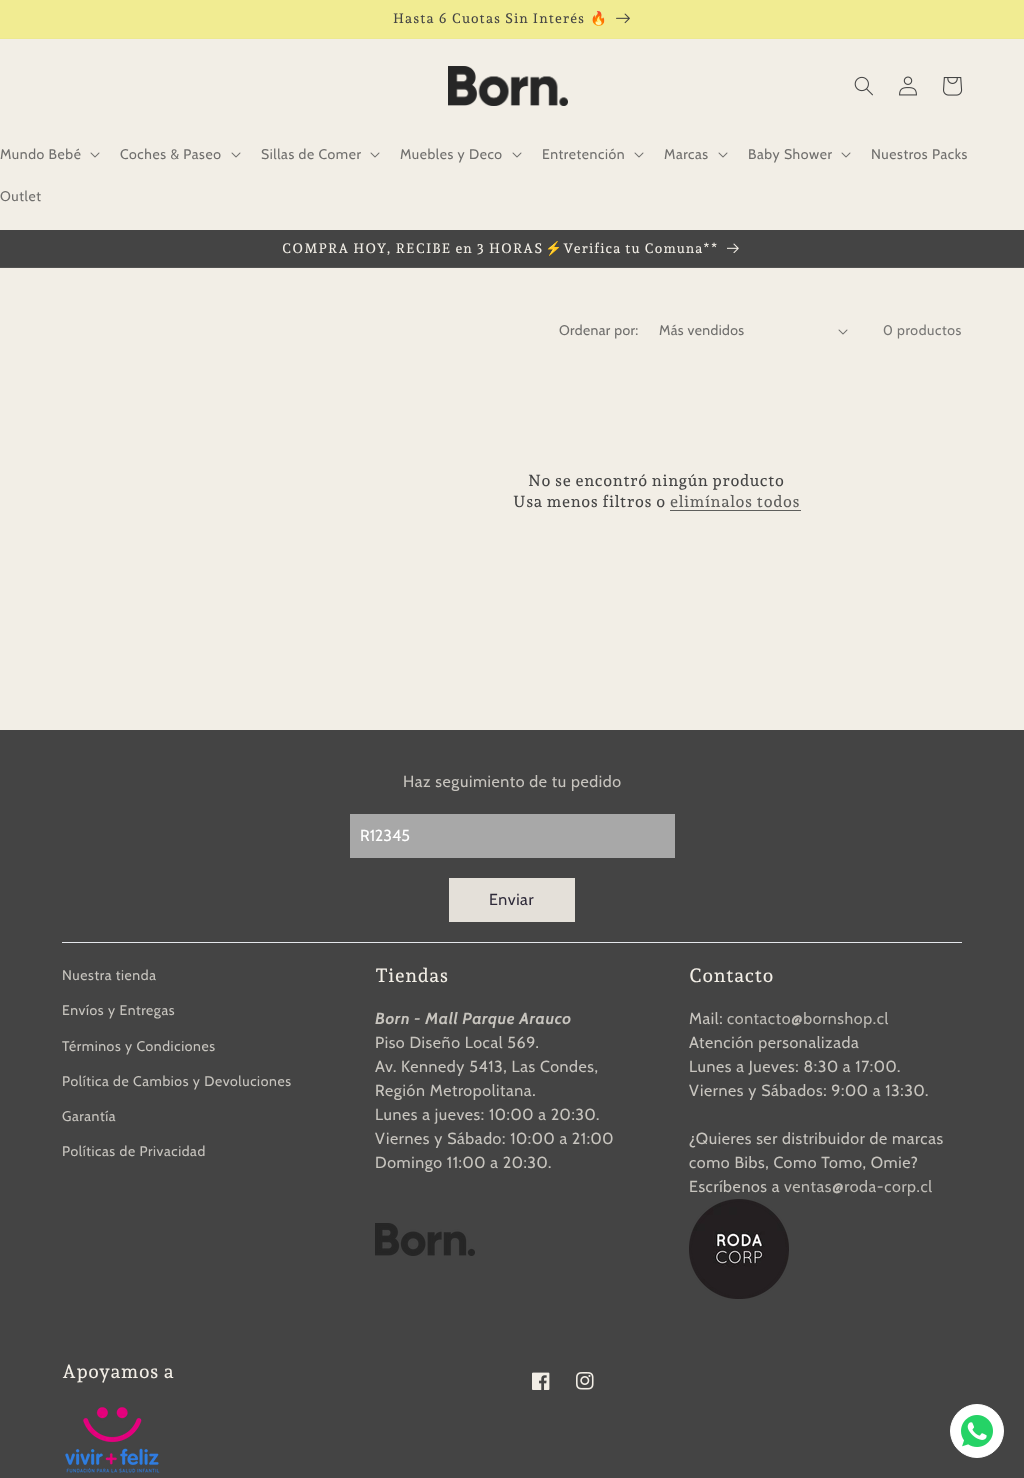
<!DOCTYPE html>
<meta charset="utf-8">
<style>body { margin: 0 } canvas { display: block }</style>
<canvas id="canvas" width="1024" height="1478"></canvas>
<img id="img1" src="images/1.png" hidden>
<img id="img2" src="images/2.png" hidden>
<img id="img3" src="images/3.png" hidden>
<img id="img4" src="images/4.png" hidden>
<img id="img5" src="images/5.png" hidden>
<img id="img6" src="images/6.png" hidden>
<img id="img7" src="images/7.png" hidden>
<img id="img8" src="images/8.png" hidden>
<img id="img9" src="images/9.png" hidden>
<img id="img10" src="images/10.png" hidden>
<img id="img11" src="images/11.png" hidden>
<img id="img12" src="images/12.png" hidden>
<img id="img13" src="images/13.png" hidden>
<script>
window.onload = function () {
    const canvas = document.getElementById('canvas');
    const context = canvas.getContext('2d');
    context.miterLimit = 4;
    context.fontKerning = 'normal';

    context.fillStyle = 'rgb(242, 238, 230)';
    context.fillRect(0, 0, 1024, 1478);
    context.fillStyle = 'rgb(237, 233, 144)';
    context.fillRect(0, 38, 1024, 1);
    context.fillStyle = 'rgb(241, 236, 146)';
    context.fillRect(0, 0, 1024, 38);
    context.drawImage(document.getElementById('img1'), 616, 13, 14, 11);
    context.drawImage(document.getElementById('img2'), 448, 66, 120, 40);
    context.drawImage(document.getElementById('img3'), 854, 76, 19, 20);
    context.drawImage(document.getElementById('img4'), 899, 76, 18, 20);
    context.drawImage(document.getElementById('img5'), 943, 77, 20, 19);
    context.drawImage(document.getElementById('img6'), 90, 152, 10, 6);
    context.drawImage(document.getElementById('img6'), 231, 152, 10, 6);
    context.drawImage(document.getElementById('img6'), 370, 152, 10, 6);
    context.drawImage(document.getElementById('img6'), 512, 152, 10, 6);
    context.drawImage(document.getElementById('img6'), 634, 152, 10, 6);
    context.drawImage(document.getElementById('img6'), 718, 152, 10, 6);
    context.drawImage(document.getElementById('img6'), 841, 152, 10, 6);
    context.fillStyle = 'rgb(68, 68, 68)';
    context.fillRect(0, 230, 1024, 37);
    context.fillStyle = 'rgb(82, 82, 81)';
    context.fillRect(0, 267, 1024, 1);
    context.drawImage(document.getElementById('img7'), 727, 243, 12, 10);
    context.drawImage(document.getElementById('img6'), 838, 329, 10, 6);
    context.fillStyle = 'rgb(94, 94, 92)';
    context.fillRect(670, 510, 131, 1);
    context.fillStyle = 'rgb(68, 68, 68)';
    context.fillRect(0, 730, 1024, 748);
    context.fillStyle = 'rgb(229, 231, 235)';
    context.fillRect(62, 942, 900, 1);
    context.fillStyle = 'rgb(168, 168, 168)';
    context.fillRect(350, 814, 325, 44);
    context.fillStyle = 'rgb(228, 224, 217)';
    context.fillRect(449, 878, 126, 44);
    context.drawImage(document.getElementById('img8'), 375, 1223, 100, 33);
    context.drawImage(document.getElementById('img9'), 689, 1199, 100, 100);
    context.drawImage(document.getElementById('img10'), 65, 1407, 95, 66);
    context.drawImage(document.getElementById('img11'), 532, 1372, 18, 18);
    context.drawImage(document.getElementById('img12'), 576, 1372, 18, 18);
    context.fillStyle = 'rgb(255, 255, 255)';
    context.beginPath();
    context.arc(977, 1431, 26.5, 0, 2 * Math.PI);
    context.fill();
    context.strokeStyle = 'rgb(255, 255, 255)';
    context.stroke();
    context.drawImage(document.getElementById('img13'), 961, 1415, 32, 32);
    context.letterSpacing = '1px';
    context.font = '500 13.6px Andada Pro';
    context.fillStyle = 'rgb(68, 68, 68)';
    context.fillText('Hasta 6 Cuotas Sin Interés', 393, 23);
    context.font = '13.6px Noto Color Emoji';
    context.fillText('🔥', 590, 23);
    context.letterSpacing = '0.6px';
    context.font = '14px Cabin';
    context.fillStyle = 'rgb(112, 111, 109)';
    context.fillText('Mundo Bebé', 0, 159);
    context.fillText('Coches & Paseo', 120, 159);
    context.fillText('Sillas de Comer', 261, 159);
    context.fillText('Muebles y Deco', 400, 159);
    context.fillText('Entretención', 542, 159);
    context.fillText('Marcas', 664, 159);
    context.fillText('Baby Shower', 748, 159);
    context.fillText('Nuestros Packs', 871, 159);
    context.fillText('Outlet', 0, 201);
    context.letterSpacing = '1px';
    context.font = '500 13.6px Andada Pro';
    context.fillStyle = 'rgb(242, 238, 230)';
    context.fillText('COMPRA HOY, RECIBE en 3 HORAS', 282, 253);
    context.font = '13.6px Noto Color Emoji';
    context.fillText('⚡', 545, 253);
    context.font = '500 13.6px Andada Pro';
    context.fillText('Verifica tu Comuna**', 563, 253);
    context.letterSpacing = '0.4px';
    context.font = '14px Cabin';
    context.fillStyle = 'rgb(112, 111, 109)';
    context.fillText('Ordenar por:', 559, 335);
    context.fillText('Más vendidos', 659, 335);
    context.letterSpacing = '0.6px';
    context.fillStyle = 'rgb(120, 119, 117)';
    context.fillText('0 productos', 883, 335);
    context.font = '500 16px Andada Pro';
    context.fillStyle = 'rgb(68, 68, 68)';
    context.fillText('No se encontró ningún producto', 528, 486);
    context.fillText('Usa menos filtros o', 513, 507);
    context.fillStyle = 'rgb(94, 94, 92)';
    context.fillText('elimínalos todos', 670, 507);
    context.font = '16px Cabin';
    context.fillStyle = 'rgb(199, 196, 190)';
    context.fillText('Haz seguimiento de tu pedido', 403, 787);
    context.letterSpacing = '0px';
    context.fillStyle = 'rgb(255, 255, 255)';
    context.fillText('R12345', 360, 841);
    context.letterSpacing = '0.6px';
    context.fillStyle = 'rgb(46, 42, 57)';
    context.fillText('Enviar', 489, 905);
    context.font = '14px Cabin';
    context.fillStyle = 'rgb(199, 196, 190)';
    context.fillText('Nuestra tienda', 62, 980);
    context.fillText('Envíos y Entregas', 62, 1015);
    context.fillText('Términos y Condiciones', 62, 1051);
    context.fillText('Política de Cambios y Devoluciones', 62, 1086);
    context.fillText('Garantía', 62, 1121);
    context.fillText('Políticas de Privacidad', 62, 1156);
    context.font = '500 19px Andada Pro';
    context.fillStyle = 'rgb(242, 238, 230)';
    context.fillText('Tiendas', 375, 982);
    context.font = 'italic bold 16px Cabin';
    context.fillStyle = 'rgb(199, 196, 190)';
    context.fillText('Born - Mall Parque Arauco', 375, 1024);
    context.font = '16px Cabin';
    context.fillText('Piso Diseño Local 569.', 375, 1048);
    context.fillText('Av. Kennedy 5413, Las Condes,', 375, 1072);
    context.fillText('Región Metropolitana.', 375, 1096);
    context.fillText('Lunes a jueves: 10:00 a 20:30.', 375, 1120);
    context.fillText('Viernes y Sábado: 10:00 a 21:00', 375, 1144);
    context.fillText('Domingo 11:00 a 20:30.', 375, 1168);
    context.font = '500 19px Andada Pro';
    context.fillStyle = 'rgb(242, 238, 230)';
    context.fillText('Contacto', 689, 982);
    context.font = '16px Cabin';
    context.fillStyle = 'rgb(199, 196, 190)';
    context.fillText('Mail:', 689, 1024);
    context.fillStyle = 'rgb(190, 187, 181)';
    context.fillText('contacto@bornshop.cl', 727, 1024);
    context.fillStyle = 'rgb(199, 196, 190)';
    context.fillText('Atención personalizada', 689, 1048);
    context.fillText('Lunes a Jueves: 8:30 a 17:00.', 689, 1072);
    context.fillText('Viernes y Sábados: 9:00 a 13:30.', 689, 1096);
    context.fillText('¿Quieres ser distribuidor de marcas', 689, 1144);
    context.fillText('como Bibs, Como Tomo, Omie?', 689, 1168);
    context.fillText('Escríbenos a', 689, 1192);
    context.fillStyle = 'rgb(190, 187, 181)';
    context.fillText('ventas@roda-corp.cl', 784, 1192);
    context.font = '500 19px Andada Pro';
    context.fillStyle = 'rgb(242, 238, 230)';
    context.fillText('Apoyamos a', 62, 1378);
};
</script>
